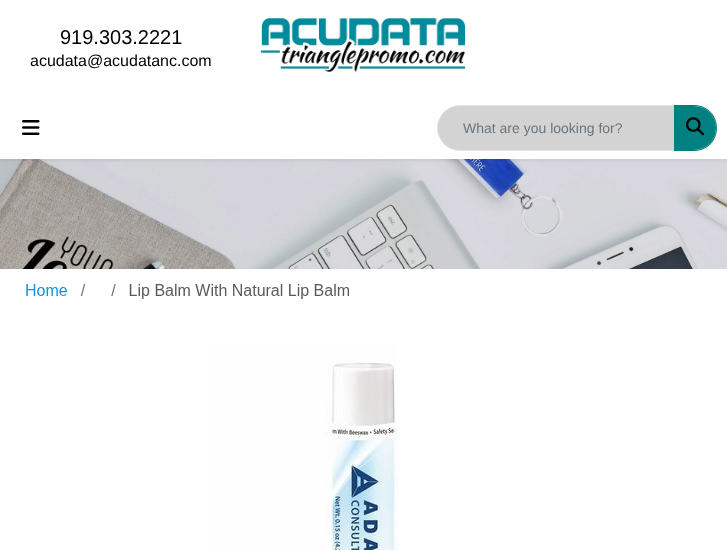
<!DOCTYPE html>
<meta charset="utf-8">
<style>body { margin: 0 } canvas { display: block }</style>
<canvas id="canvas" width="727" height="550"></canvas>
<img id="img1" src="images/1.png" hidden>
<img id="img2" src="images/4.png" hidden>
<img id="img3" src="images/2.png" hidden>
<img id="img4" src="images/3.png" hidden>
<img id="img5" src="images/5.png" hidden>
<script>
window.onload = function () {
    const canvas = document.getElementById('canvas');
    const context = canvas.getContext('2d');
    context.miterLimit = 4;
    context.fontKerning = 'normal';

    context.fillStyle = 'rgb(255, 255, 255)';
    context.fillRect(0, 0, 727, 550);
    context.drawImage(document.getElementById('img1'), 260, 18, 205, 54);
    context.drawImage(document.getElementById('img2'), 0, 159, 727, 110);
    context.save();
    context.beginPath();
    context.rect(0, 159, 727, 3);
    context.clip();
    context.fillStyle = 'rgba(0, 0, 0, 0.07)';
    context.filter = 'blur(2px)';
    context.beginPath();
    context.rect(0, 99, 727, 62);
    context.fill();
    context.filter = 'none';
    context.restore();
    context.drawImage(document.getElementById('img3'), 22, 120, 18, 15);
    context.fillStyle = 'rgb(211, 211, 211)';
    context.beginPath();
    context.roundRect(437.5, 105.5, 237, 45, [22.5, 0, 0, 22.5]);
    context.fill();
    context.strokeStyle = 'rgb(228, 228, 228)';
    context.stroke();
    context.fillStyle = 'rgb(0, 128, 128)';
    context.beginPath();
    context.roundRect(674, 106, 42, 44, [0, 22, 22, 0]);
    context.fill();
    context.beginPath();
    context.moveTo(674, 105);
    context.lineTo(694, 105);
    context.bezierCurveTo(707, 105, 717, 115, 717, 128);
    context.bezierCurveTo(717, 141, 707, 151, 694, 151);
    context.lineTo(674, 151);
    context.closePath();
    context.moveTo(674, 106);
    context.lineTo(694, 106);
    context.bezierCurveTo(706, 106, 716, 116, 716, 128);
    context.bezierCurveTo(716, 140, 706, 150, 694, 150);
    context.lineTo(674, 150);
    context.closePath();
    context.fill('evenodd');
    context.drawImage(document.getElementById('img4'), 686, 117, 18, 19);
    context.drawImage(document.getElementById('img5'), 26, 284, 371, 266);
    context.font = '20px Liberation Sans';
    context.fillStyle = 'rgb(0, 0, 0)';
    context.fillText('919.303.2221', 60, 44);
    context.font = '16px Liberation Sans';
    context.fillText('acudata@acudatanc.com', 30, 66);
    context.font = '14px Liberation Sans';
    context.fillStyle = 'rgb(108, 117, 125)';
    context.fillText('What are you looking for?', 463, 133);
};
</script>
